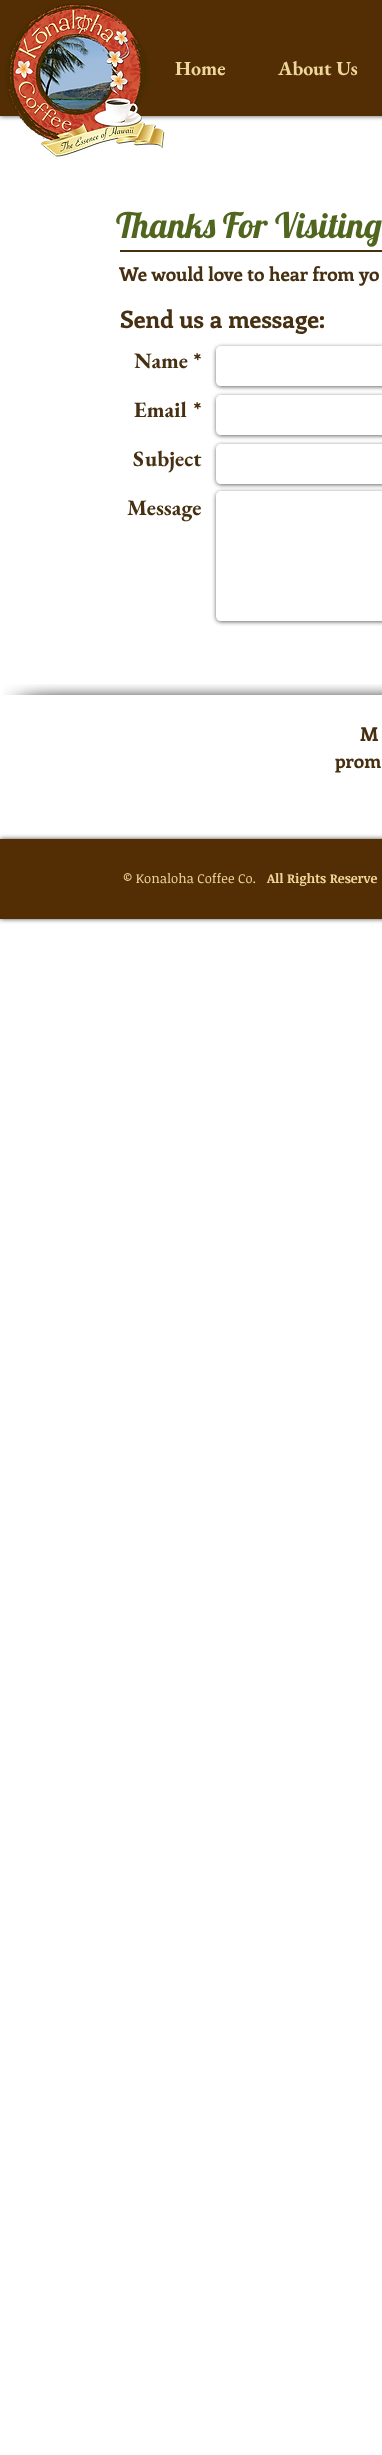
<!DOCTYPE html>
<meta charset="utf-8">
<style>body { margin: 0 } canvas { display: block }</style>
<canvas id="canvas" width="382" height="2455"></canvas>
<img id="img1" src="images/1.png" hidden>
<img id="img2" src="images/2.png" hidden>
<img id="img3" src="images/3.png" hidden>
<script>
window.onload = function () {
    const canvas = document.getElementById('canvas');
    const context = canvas.getContext('2d');
    context.miterLimit = 4;
    context.fontKerning = 'normal';

    context.fillStyle = 'rgb(255, 255, 255)';
    context.fillRect(0, 0, 382, 2455);
    context.fillStyle = 'rgba(0, 0, 0, 0.7)';
    context.filter = 'blur(2.5px)';
    context.beginPath();
    context.rect(0, 0, 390, 116);
    context.fill();
    context.filter = 'none';
    context.fillStyle = 'rgb(83, 46, 4)';
    context.fillRect(0, 0, 382, 116);
    context.drawImage(document.getElementById('img1'), 5, 3, 160, 154);
    context.fillStyle = 'rgb(71, 47, 17)';
    context.fillRect(120, 250, 262, 2);
    context.save();
    context.beginPath();
    context.moveTo(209, 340);
    context.lineTo(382, 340);
    context.lineTo(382, 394);
    context.lineTo(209, 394);
    context.closePath();
    context.moveTo(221, 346);
    context.lineTo(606, 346);
    context.bezierCurveTo(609, 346, 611, 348, 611, 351);
    context.lineTo(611, 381);
    context.bezierCurveTo(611, 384, 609, 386, 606, 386);
    context.lineTo(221, 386);
    context.bezierCurveTo(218, 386, 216, 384, 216, 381);
    context.lineTo(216, 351);
    context.bezierCurveTo(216, 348, 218, 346, 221, 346);
    context.closePath();
    context.clip('evenodd');
    context.fillStyle = 'rgba(0, 0, 0, 0.6)';
    context.filter = 'blur(2px)';
    context.beginPath();
    context.roundRect(216, 347, 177, 40, 5);
    context.fill();
    context.filter = 'none';
    context.restore();
    context.save();
    context.beginPath();
    context.moveTo(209, 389);
    context.lineTo(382, 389);
    context.lineTo(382, 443);
    context.lineTo(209, 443);
    context.closePath();
    context.moveTo(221, 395);
    context.lineTo(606, 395);
    context.bezierCurveTo(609, 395, 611, 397, 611, 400);
    context.lineTo(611, 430);
    context.bezierCurveTo(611, 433, 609, 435, 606, 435);
    context.lineTo(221, 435);
    context.bezierCurveTo(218, 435, 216, 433, 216, 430);
    context.lineTo(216, 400);
    context.bezierCurveTo(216, 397, 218, 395, 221, 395);
    context.closePath();
    context.clip('evenodd');
    context.fillStyle = 'rgba(0, 0, 0, 0.6)';
    context.filter = 'blur(2px)';
    context.beginPath();
    context.roundRect(216, 396, 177, 40, 5);
    context.fill();
    context.filter = 'none';
    context.restore();
    context.save();
    context.beginPath();
    context.moveTo(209, 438);
    context.lineTo(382, 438);
    context.lineTo(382, 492);
    context.lineTo(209, 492);
    context.closePath();
    context.moveTo(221, 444);
    context.lineTo(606, 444);
    context.bezierCurveTo(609, 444, 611, 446, 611, 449);
    context.lineTo(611, 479);
    context.bezierCurveTo(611, 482, 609, 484, 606, 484);
    context.lineTo(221, 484);
    context.bezierCurveTo(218, 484, 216, 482, 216, 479);
    context.lineTo(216, 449);
    context.bezierCurveTo(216, 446, 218, 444, 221, 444);
    context.closePath();
    context.clip('evenodd');
    context.fillStyle = 'rgba(0, 0, 0, 0.6)';
    context.filter = 'blur(2px)';
    context.beginPath();
    context.roundRect(216, 445, 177, 40, 5);
    context.fill();
    context.filter = 'none';
    context.restore();
    context.save();
    context.beginPath();
    context.moveTo(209, 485);
    context.lineTo(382, 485);
    context.lineTo(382, 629);
    context.lineTo(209, 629);
    context.closePath();
    context.moveTo(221, 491);
    context.lineTo(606, 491);
    context.bezierCurveTo(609, 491, 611, 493, 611, 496);
    context.lineTo(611, 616);
    context.bezierCurveTo(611, 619, 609, 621, 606, 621);
    context.lineTo(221, 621);
    context.bezierCurveTo(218, 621, 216, 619, 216, 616);
    context.lineTo(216, 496);
    context.bezierCurveTo(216, 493, 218, 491, 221, 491);
    context.closePath();
    context.clip('evenodd');
    context.fillStyle = 'rgba(0, 0, 0, 0.6)';
    context.filter = 'blur(2px)';
    context.beginPath();
    context.roundRect(216, 492, 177, 130, 5);
    context.fill();
    context.filter = 'none';
    context.restore();
    context.drawImage(document.getElementById('img2'), 3, 684, 97, 11);
    context.drawImage(document.getElementById('img3'), 100, 684, 282, 11);
    context.fillStyle = 'rgba(0, 0, 0, 0.7)';
    context.filter = 'blur(2.5px)';
    context.beginPath();
    context.rect(0, 839, 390, 80);
    context.fill();
    context.filter = 'none';
    context.fillStyle = 'rgb(83, 46, 4)';
    context.fillRect(0, 839, 382, 80);
    context.font = 'bold 20px EB Garamond';
    context.fillStyle = 'rgb(239, 215, 155)';
    context.fillText('Home', 175, 75);
    context.fillText('About Us', 278, 75);
    context.font = '35px Lobster';
    context.fillStyle = 'rgb(80, 102, 31)';
    context.fillText('Thanks For Visiting', 116, 238);
    context.font = 'bold 19px Enriqueta';
    context.fillStyle = 'rgb(71, 47, 17)';
    context.fillText('We would love to hear from yo', 119, 281);
    context.font = 'bold 24px Enriqueta';
    context.fillText('Send us a message:', 120, 328);
    context.font = 'bold 22px EB Garamond';
    context.fillText('Name *', 134, 368);
    context.fillText('Email *', 134, 417);
    context.fillText('Subject', 133, 466);
    context.fillText('Message', 127, 515);
    context.font = 'bold 19px Enriqueta';
    context.fillText('M', 360, 741);
    context.fillText('prom', 335, 768);
    context.font = '13px Noticia Text';
    context.fillStyle = 'rgb(239, 215, 155)';
    context.fillText('© Konaloha Coffee Co.', 123, 883);
    context.font = 'bold 13px Noticia Text';
    context.fillText('All Rights Reserve', 267, 883);
};
</script>
